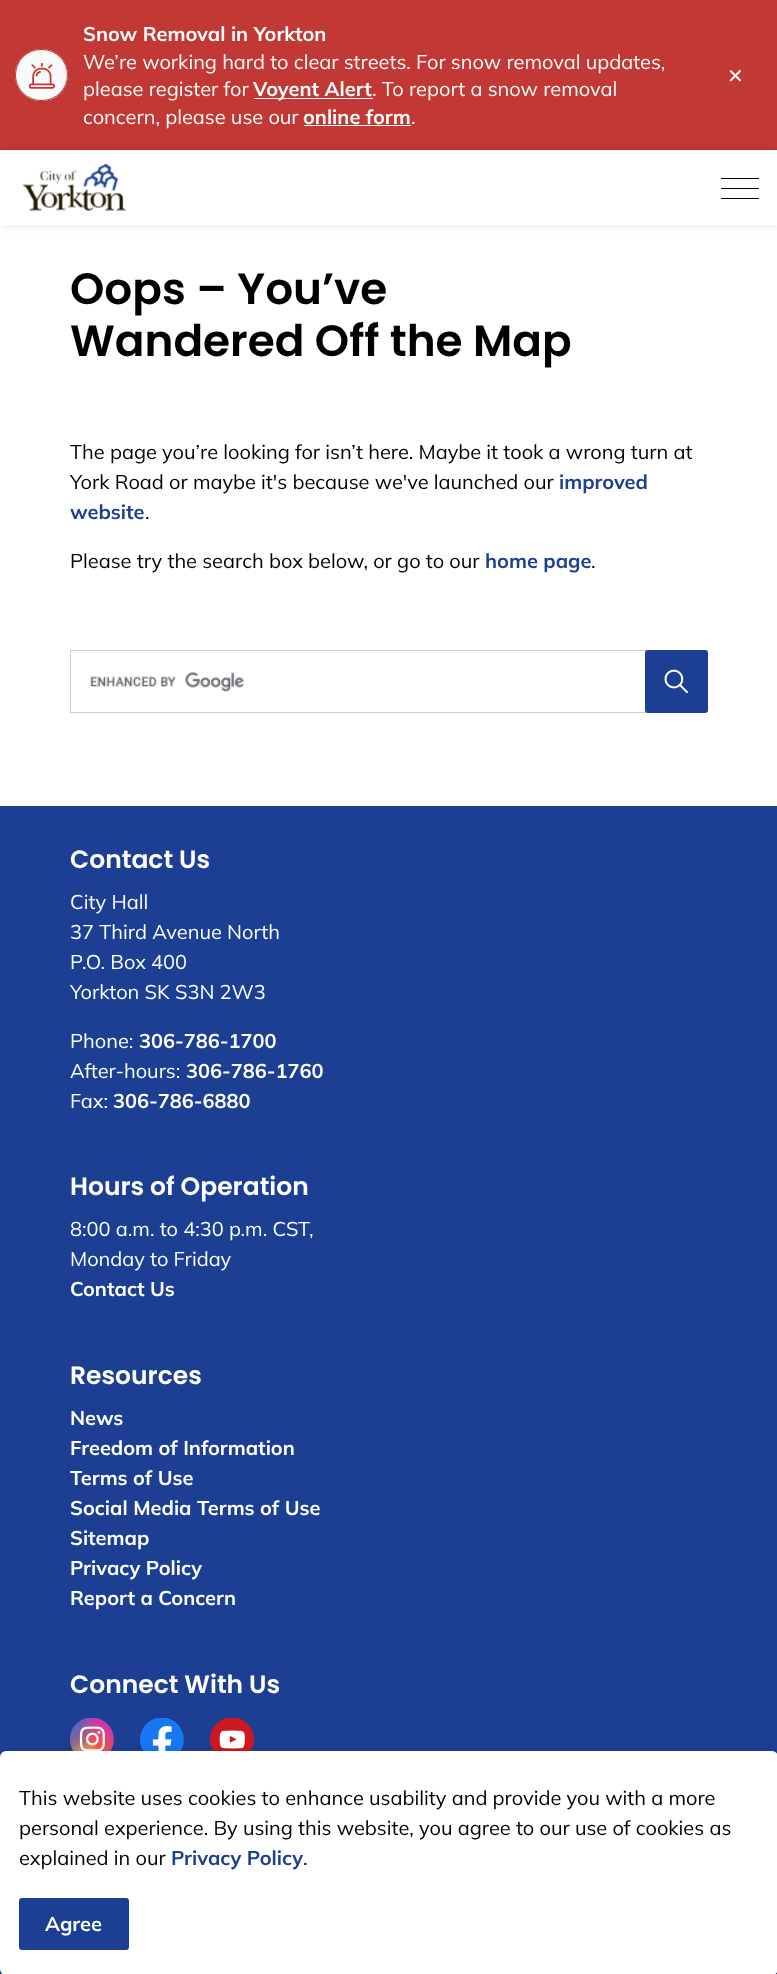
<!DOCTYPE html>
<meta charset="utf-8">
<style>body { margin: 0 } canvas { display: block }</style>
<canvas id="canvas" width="777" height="1974"></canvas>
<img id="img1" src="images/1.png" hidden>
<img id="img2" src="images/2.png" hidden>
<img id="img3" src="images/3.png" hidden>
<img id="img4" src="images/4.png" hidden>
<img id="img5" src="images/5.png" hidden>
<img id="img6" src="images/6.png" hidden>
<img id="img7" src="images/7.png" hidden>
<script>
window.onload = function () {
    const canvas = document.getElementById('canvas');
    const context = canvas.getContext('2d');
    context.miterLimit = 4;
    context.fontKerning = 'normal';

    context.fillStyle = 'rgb(255, 255, 255)';
    context.fillRect(0, 0, 777, 1974);
    context.fillStyle = 'rgb(194, 56, 52)';
    context.fillRect(0, 0, 777, 150);
    context.fillStyle = 'rgb(250, 250, 250)';
    context.beginPath();
    context.roundRect(15, 49, 53, 52, 26);
    context.fill();
    context.drawImage(document.getElementById('img1'), 29, 63, 26, 26);
    context.beginPath();
    context.roundRect(15.5, 49.5, 52, 51, 25.5);
    context.strokeStyle = 'rgb(194, 56, 52)';
    context.stroke();
    context.fillStyle = 'rgb(255, 255, 255)';
    context.fillRect(254, 98, 119, 1);
    context.fillRect(304, 125, 107, 1);
    context.save();
    context.beginPath();
    context.moveTo(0, 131);
    context.lineTo(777, 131);
    context.lineTo(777, 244);
    context.lineTo(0, 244);
    context.closePath();
    context.moveTo(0, 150);
    context.lineTo(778, 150);
    context.lineTo(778, 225);
    context.lineTo(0, 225);
    context.closePath();
    context.clip('evenodd');
    context.fillStyle = 'rgba(0, 0, 0, 0.1)';
    context.filter = 'blur(6px)';
    context.beginPath();
    context.rect(0, 150, 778, 75);
    context.fill();
    context.filter = 'none';
    context.restore();
    context.drawImage(document.getElementById('img2'), 22, 163, 104, 48);
    context.fillStyle = 'rgb(0, 0, 0)';
    context.fillRect(721, 188, 38, 1);
    context.fillRect(721, 178, 38, 1);
    context.fillRect(721, 198, 38, 1);
    context.drawImage(document.getElementById('img3'), 90, 672, 154, 20);
    context.strokeStyle = 'rgb(204, 204, 204)';
    context.strokeRect(70.5, 650.5, 630, 62);
    context.fillStyle = 'rgb(28, 63, 148)';
    context.beginPath();
    context.roundRect(645.5, 650.5, 62, 62, 2);
    context.fill();
    context.strokeStyle = 'rgb(28, 63, 148)';
    context.stroke();
    context.drawImage(document.getElementById('img4'), 664, 669, 24, 25);
    context.fillRect(0, 806, 777, 1168);
    context.drawImage(document.getElementById('img5'), 70, 1718, 44, 33);
    context.drawImage(document.getElementById('img6'), 140, 1718, 44, 33);
    context.drawImage(document.getElementById('img7'), 210, 1718, 44, 33);
    context.fillStyle = 'rgba(0, 0, 0, 0.1)';
    context.filter = 'blur(6px)';
    context.beginPath();
    context.roundRect(0, 1751, 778, 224, 6);
    context.fill();
    context.filter = 'none';
    context.fillStyle = 'rgb(255, 255, 255)';
    context.beginPath();
    context.roundRect(0, 1751, 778, 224, 6);
    context.fill();
    context.fillStyle = 'rgb(28, 63, 148)';
    context.beginPath();
    context.roundRect(19.5, 1898.5, 109, 51, 2);
    context.fill();
    context.stroke();
    context.font = 'bold 20px Mulish';
    context.fillStyle = 'rgb(255, 255, 255)';
    context.fillText('Snow Removal in Yorkton', 83, 41);
    context.font = '20px Mulish';
    context.fillText('We’re working hard to clear streets. For snow removal updates,', 83, 69);
    context.fillText('please register for', 83, 96);
    context.font = 'bold 20px Mulish';
    context.fillText('Voyent Alert', 253, 96);
    context.font = '20px Mulish';
    context.fillText('. To report a snow removal', 372, 96);
    context.fillText('concern, please use our', 83, 124);
    context.font = 'bold 20px Mulish';
    context.fillText('online form', 303, 124);
    context.font = '20px Mulish';
    context.fillText('.', 411, 124);
    context.font = '20px DejaVu Sans';
    context.fillText('✕', 727, 83);
    context.font = '600 43.75px Poppins';
    context.fillStyle = 'rgb(0, 0, 0)';
    context.fillText('Oops – You’ve', 70, 304);
    context.fillText('Wandered Off the Map', 70, 356);
    context.font = '20px Mulish';
    context.fillText('The page you’re looking for isn’t here. Maybe it took a wrong turn at', 70, 459);
    context.fillText('York Road or maybe it\'s because we\'ve launched our', 70, 489);
    context.font = 'bold 20px Mulish';
    context.fillStyle = 'rgb(28, 63, 148)';
    context.fillText('improved', 559, 489);
    context.fillText('website', 70, 519);
    context.font = '20px Mulish';
    context.fillStyle = 'rgb(0, 0, 0)';
    context.fillText('.', 145, 519);
    context.fillText('Please try the search box below, or go to our', 70, 568);
    context.font = 'bold 20px Mulish';
    context.fillStyle = 'rgb(28, 63, 148)';
    context.fillText('home page', 485, 568);
    context.font = '20px Mulish';
    context.fillStyle = 'rgb(0, 0, 0)';
    context.fillText('.', 591, 568);
    context.font = '600 25px Poppins';
    context.fillStyle = 'rgb(255, 255, 255)';
    context.fillText('Contact Us', 70, 868);
    context.font = '20px Mulish';
    context.fillText('City Hall', 70, 909);
    context.fillText('37 Third Avenue North', 70, 939);
    context.fillText('P.O. Box 400', 70, 969);
    context.fillText('Yorkton SK S3N 2W3', 70, 999);
    context.fillText('Phone:', 70, 1048);
    context.font = 'bold 20px Mulish';
    context.fillText('306-786-1700', 139, 1048);
    context.font = '20px Mulish';
    context.fillText('After-hours:', 70, 1078);
    context.font = 'bold 20px Mulish';
    context.fillText('306-786-1760', 186, 1078);
    context.font = '20px Mulish';
    context.fillText('Fax:', 70, 1108);
    context.font = 'bold 20px Mulish';
    context.fillText('306-786-6880', 113, 1108);
    context.font = '600 25px Poppins';
    context.fillText('Hours of Operation', 70, 1195);
    context.font = '20px Mulish';
    context.fillText('8:00 a.m. to 4:30 p.m. CST,', 70, 1236);
    context.fillText('Monday to Friday', 70, 1266);
    context.font = 'bold 20px Mulish';
    context.fillText('Contact Us', 70, 1296);
    context.font = '600 25px Poppins';
    context.fillText('Resources', 70, 1384);
    context.font = 'bold 20px Mulish';
    context.fillText('News', 70, 1425);
    context.fillText('Freedom of Information', 70, 1455);
    context.fillText('Terms of Use', 70, 1485);
    context.fillText('Social Media Terms of Use', 70, 1515);
    context.fillText('Sitemap', 70, 1545);
    context.fillText('Privacy Policy', 70, 1575);
    context.fillText('Report a Concern', 70, 1605);
    context.font = '600 25px Poppins';
    context.fillText('Connect With Us', 70, 1693);
    context.font = '20px Mulish';
    context.fillStyle = 'rgb(0, 0, 0)';
    context.fillText('This website uses cookies to enhance usability and provide you with a more', 19, 1805);
    context.fillText('personal experience. By using this website, you agree to our use of cookies as', 19, 1835);
    context.fillText('explained in our', 19, 1865);
    context.font = 'bold 20px Mulish';
    context.fillStyle = 'rgb(28, 63, 148)';
    context.fillText('Privacy Policy', 171, 1865);
    context.font = '20px Mulish';
    context.fillStyle = 'rgb(0, 0, 0)';
    context.fillText('.', 303, 1865);
    context.font = 'bold 20px Mulish';
    context.fillStyle = 'rgb(255, 255, 255)';
    context.fillText('Agree', 45, 1931);
};
</script>
